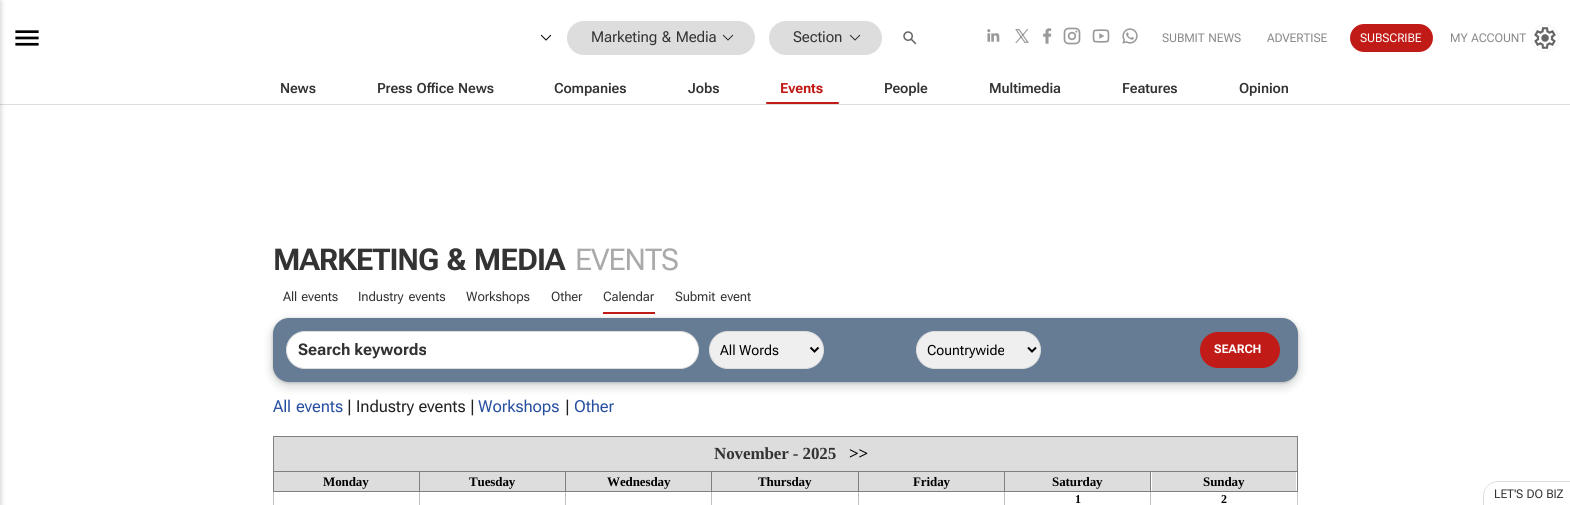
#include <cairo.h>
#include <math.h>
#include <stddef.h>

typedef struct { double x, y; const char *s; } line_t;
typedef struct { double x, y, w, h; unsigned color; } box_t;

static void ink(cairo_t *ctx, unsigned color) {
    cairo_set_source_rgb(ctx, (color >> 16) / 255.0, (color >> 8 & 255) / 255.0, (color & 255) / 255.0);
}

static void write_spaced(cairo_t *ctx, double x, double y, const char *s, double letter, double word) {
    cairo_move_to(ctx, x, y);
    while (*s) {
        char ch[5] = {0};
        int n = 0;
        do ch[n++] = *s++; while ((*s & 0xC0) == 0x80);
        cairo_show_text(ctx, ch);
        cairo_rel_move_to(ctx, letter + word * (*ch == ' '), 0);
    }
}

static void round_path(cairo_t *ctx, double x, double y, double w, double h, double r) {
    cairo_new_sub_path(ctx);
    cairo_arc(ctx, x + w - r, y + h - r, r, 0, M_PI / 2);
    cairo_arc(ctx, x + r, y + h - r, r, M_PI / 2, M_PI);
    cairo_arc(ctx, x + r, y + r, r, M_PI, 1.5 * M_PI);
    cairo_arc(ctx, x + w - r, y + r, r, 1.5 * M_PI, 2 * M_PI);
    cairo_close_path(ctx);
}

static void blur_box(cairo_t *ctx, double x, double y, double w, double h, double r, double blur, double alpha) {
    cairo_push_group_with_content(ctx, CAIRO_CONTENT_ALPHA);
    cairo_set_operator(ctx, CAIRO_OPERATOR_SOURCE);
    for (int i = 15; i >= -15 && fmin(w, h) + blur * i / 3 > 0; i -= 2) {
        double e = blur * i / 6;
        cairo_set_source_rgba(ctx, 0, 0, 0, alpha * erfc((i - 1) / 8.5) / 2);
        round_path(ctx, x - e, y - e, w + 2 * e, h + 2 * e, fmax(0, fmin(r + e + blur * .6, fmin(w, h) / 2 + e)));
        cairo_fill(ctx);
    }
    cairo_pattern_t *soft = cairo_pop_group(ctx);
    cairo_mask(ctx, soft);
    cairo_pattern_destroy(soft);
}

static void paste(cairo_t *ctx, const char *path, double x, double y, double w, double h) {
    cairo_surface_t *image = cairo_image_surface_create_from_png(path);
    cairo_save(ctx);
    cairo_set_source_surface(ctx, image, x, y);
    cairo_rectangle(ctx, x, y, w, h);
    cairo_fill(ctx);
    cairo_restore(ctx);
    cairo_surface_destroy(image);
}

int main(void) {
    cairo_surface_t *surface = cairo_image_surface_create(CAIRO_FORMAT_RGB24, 1570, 505);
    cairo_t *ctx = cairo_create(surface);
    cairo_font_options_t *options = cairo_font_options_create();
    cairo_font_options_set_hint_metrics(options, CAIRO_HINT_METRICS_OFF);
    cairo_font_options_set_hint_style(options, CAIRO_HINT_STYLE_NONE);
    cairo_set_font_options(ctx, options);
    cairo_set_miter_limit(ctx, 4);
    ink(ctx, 0xFFFFFF);
    cairo_paint(ctx);
    ink(ctx, 0xDDDDDD);
    cairo_rectangle(ctx, 0, 104, 1570, 1);
    cairo_fill(ctx);
    ink(ctx, 0x202124);
    blur_box(ctx, -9, 1, 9, 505, 0, 3, 0.28);
    paste(ctx, "media/1.png", 15, 30, 24, 16);
    paste(ctx, "media/2.png", 540, 34, 12, 7);
    ink(ctx, 0xDDDDDD);
    round_path(ctx, 567, 21, 188, 34, 17);
    cairo_fill(ctx);
    cairo_select_font_face(ctx, "Roboto Flex", CAIRO_FONT_SLANT_NORMAL, CAIRO_FONT_WEIGHT_NORMAL);
    cairo_set_font_size(ctx, 15);
    ink(ctx, 0x333333);
    write_spaced(ctx, 591, 42, "Marketing & Media", -0.1, 1);
    paste(ctx, "media/3.png", 722, 34, 12, 7);
    ink(ctx, 0xDDDDDD);
    round_path(ctx, 769, 21, 113, 34, 17);
    cairo_fill(ctx);
    ink(ctx, 0x333333);
    write_spaced(ctx, 793, 42, "Section", -0.1, 0);
    paste(ctx, "media/3.png", 849, 34, 12, 7);
    paste(ctx, "media/4.png", 903, 31, 14, 14);
    paste(ctx, "media/5.png", 987, 29, 13, 13);
    paste(ctx, "media/6.png", 1015, 29, 14, 14);
    paste(ctx, "media/7.png", 1043, 28, 9, 16);
    paste(ctx, "media/8.png", 1063, 27, 18, 18);
    paste(ctx, "media/9.png", 1092, 29, 18, 14);
    paste(ctx, "media/10.png", 1122, 28, 16, 16);
    cairo_set_font_size(ctx, 12);
    ink(ctx, 0x888888);
    write_spaced(ctx, 1162, 42, "SUBMIT NEWS", -0.1, 1);
    write_spaced(ctx, 1267, 42, "ADVERTISE", -0.1, 0);
    ink(ctx, 0xC11B17);
    round_path(ctx, 1350, 24, 83, 28, 14);
    cairo_fill(ctx);
    ink(ctx, 0xFFFFFF);
    write_spaced(ctx, 1360, 42, "SUBSCRIBE", -0.1, 0);
    ink(ctx, 0x888888);
    write_spaced(ctx, 1450, 42, "MY ACCOUNT", -0.1, 1);
    paste(ctx, "media/11.png", 1534, 27, 22, 22);
    cairo_arc(ctx, 1545, 38, 13.5, 0, 2 * M_PI);
    ink(ctx, 0xF5F5F5);
    cairo_set_line_width(ctx, 1);
    cairo_stroke(ctx);
    cairo_select_font_face(ctx, "Roboto Flex SemiBold", CAIRO_FONT_SLANT_NORMAL, CAIRO_FONT_WEIGHT_NORMAL);
    cairo_set_font_size(ctx, 14);
    ink(ctx, 0x333333);
    write_spaced(ctx, 280, 93, "News", -0.1, 0);
    write_spaced(ctx, 377, 93, "Press Office News", -0.1, 1);
    write_spaced(ctx, 554, 93, "Companies", -0.1, 0);
    write_spaced(ctx, 688, 93, "Jobs", -0.1, 0);
    cairo_select_font_face(ctx, "Roboto Flex", CAIRO_FONT_SLANT_NORMAL, CAIRO_FONT_WEIGHT_BOLD);
    ink(ctx, 0xC11B17);
    write_spaced(ctx, 780, 93, "Events", -0.1, 0);
    round_path(ctx, 766, 102, 73, 2, 1);
    cairo_fill(ctx);
    cairo_select_font_face(ctx, "Roboto Flex SemiBold", CAIRO_FONT_SLANT_NORMAL, CAIRO_FONT_WEIGHT_NORMAL);
    ink(ctx, 0x333333);
    {
        static const line_t items[] = {
            {884, 93, "People"},
            {989, 93, "Multimedia"},
            {1122, 93, "Features"},
            {1239, 93, "Opinion"},
        };
        for (size_t i = 0; i < sizeof items / sizeof *items; i++) {
            write_spaced(ctx, items[i].x, items[i].y, items[i].s, -0.1, 0);
        }
    }
    cairo_select_font_face(ctx, "Roboto Flex", CAIRO_FONT_SLANT_NORMAL, CAIRO_FONT_WEIGHT_BOLD);
    cairo_set_font_size(ctx, 30);
    write_spaced(ctx, 273, 270, "MARKETING & MEDIA", -1, 2);
    cairo_select_font_face(ctx, "Roboto Flex", CAIRO_FONT_SLANT_NORMAL, CAIRO_FONT_WEIGHT_NORMAL);
    ink(ctx, 0xAAAAAA);
    write_spaced(ctx, 575, 270, "EVENTS", -1, 0);
    cairo_set_font_size(ctx, 13);
    ink(ctx, 0x333333);
    write_spaced(ctx, 283, 301, "All events", -0.1, 1);
    write_spaced(ctx, 358, 301, "Industry events", -0.1, 2);
    write_spaced(ctx, 466, 301, "Workshops", -0.1, 0);
    write_spaced(ctx, 551, 301, "Other", -0.1, 0);
    ink(ctx, 0x3C4043);
    blur_box(ctx, 270, 319, 1031, 70, 19, 4, 0.15);
    blur_box(ctx, 273, 319, 1025, 64, 16, 1.5, 0.3);
    ink(ctx, 0xC11B17);
    cairo_rectangle(ctx, 603, 312, 52, 2);
    cairo_fill(ctx);
    ink(ctx, 0x333333);
    write_spaced(ctx, 603, 301, "Calendar", -0.1, 0);
    write_spaced(ctx, 675, 301, "Submit event", -0.1, 2);
    ink(ctx, 0x667C94);
    round_path(ctx, 273, 318, 1025, 64, 16);
    cairo_fill(ctx);
    ink(ctx, 0xFFFFFF);
    round_path(ctx, 286.5, 331.5, 412, 37, 18.5);
    cairo_fill_preserve(ctx);
    ink(ctx, 0xDDDDDD);
    cairo_stroke(ctx);
    cairo_select_font_face(ctx, "Roboto Flex", CAIRO_FONT_SLANT_NORMAL, CAIRO_FONT_WEIGHT_BOLD);
    cairo_set_font_size(ctx, 16);
    ink(ctx, 0x333333);
    cairo_move_to(ctx, 298, 355);
    cairo_show_text(ctx, "Search keywords");
    ink(ctx, 0xEFEFEF);
    round_path(ctx, 709.5, 331.5, 114, 37, 18.5);
    cairo_fill_preserve(ctx);
    ink(ctx, 0xDDDDDD);
    cairo_stroke(ctx);
    cairo_new_path(ctx);
    cairo_move_to(ctx, 810.5, 347.5);
    cairo_line_to(ctx, 814.5, 351.5);
    cairo_line_to(ctx, 818.5, 347.5);
    ink(ctx, 0x000000);
    cairo_set_line_width(ctx, 2);
    cairo_stroke(ctx);
    cairo_select_font_face(ctx, "Roboto Flex", CAIRO_FONT_SLANT_NORMAL, CAIRO_FONT_WEIGHT_NORMAL);
    cairo_set_font_size(ctx, 14);
    cairo_move_to(ctx, 720, 355);
    cairo_show_text(ctx, "All Words");
    ink(ctx, 0xEFEFEF);
    round_path(ctx, 916.5, 331.5, 124, 37, 18.5);
    cairo_fill_preserve(ctx);
    ink(ctx, 0xDDDDDD);
    cairo_set_line_width(ctx, 1);
    cairo_stroke(ctx);
    cairo_new_path(ctx);
    cairo_move_to(ctx, 1028, 347.5);
    cairo_line_to(ctx, 1032, 351.5);
    cairo_line_to(ctx, 1036, 347.5);
    ink(ctx, 0x000000);
    cairo_set_line_width(ctx, 2);
    cairo_stroke(ctx);
    cairo_move_to(ctx, 927, 355);
    cairo_show_text(ctx, "Countrywide");
    ink(ctx, 0xC11B17);
    round_path(ctx, 1200, 332, 80, 36, 18);
    cairo_fill(ctx);
    cairo_select_font_face(ctx, "Roboto Flex", CAIRO_FONT_SLANT_NORMAL, CAIRO_FONT_WEIGHT_BOLD);
    cairo_set_font_size(ctx, 12);
    ink(ctx, 0xFFFFFF);
    cairo_move_to(ctx, 1214, 353);
    cairo_show_text(ctx, "SEARCH");
    cairo_select_font_face(ctx, "Roboto Flex", CAIRO_FONT_SLANT_NORMAL, CAIRO_FONT_WEIGHT_NORMAL);
    cairo_set_font_size(ctx, 16.5);
    ink(ctx, 0x264EA0);
    write_spaced(ctx, 273, 412, "All events", -0.1, 1);
    ink(ctx, 0x202122);
    write_spaced(ctx, 347, 412, "| Industry events |", -0.1, 0.5);
    ink(ctx, 0x264EA0);
    write_spaced(ctx, 478, 412, "Workshops", -0.1, 0);
    ink(ctx, 0x202122);
    write_spaced(ctx, 565, 412, "|", -0.1, 0);
    ink(ctx, 0x264EA0);
    write_spaced(ctx, 574, 412, "Other", -0.1, 0);
    {
        static const box_t items[] = {
            {1297, 492, 1, 13, 0xCCCCCC},
            {274, 437, 1023, 34, 0xDDDDDD},
            {273, 436, 1025, 1, 0x808080},
            {1297, 471, 1, 21, 0x808080},
            {1297, 436, 1, 36, 0x808080},
            {1150, 491, 1, 14, 0xC0C0C0},
            {1150, 491, 148, 1, 0x808080},
            {1150, 471, 1, 21, 0x808080},
            {1004, 491, 1, 14, 0xC0C0C0},
            {1004, 491, 147, 1, 0x808080},
            {1004, 471, 1, 21, 0x808080},
            {858, 491, 1, 14, 0xC0C0C0},
            {858, 491, 147, 1, 0x808080},
            {858, 471, 1, 21, 0x808080},
            {711, 491, 1, 14, 0xC0C0C0},
            {711, 491, 148, 1, 0x808080},
            {711, 471, 1, 21, 0x808080},
            {565, 491, 1, 14, 0xC0C0C0},
            {565, 491, 147, 1, 0x808080},
            {565, 471, 1, 21, 0x808080},
            {419, 491, 1, 14, 0xC0C0C0},
            {419, 491, 147, 1, 0x808080},
            {419, 471, 1, 21, 0x808080},
            {273, 491, 1, 14, 0xC0C0C0},
            {273, 491, 147, 1, 0x808080},
            {273, 471, 1, 21, 0x808080},
            {273, 471, 1025, 1, 0x808080},
            {273, 436, 1, 36, 0x808080},
        };
        for (size_t i = 0; i < sizeof items / sizeof *items; i++) {
            ink(ctx, items[i].color);
            cairo_rectangle(ctx, items[i].x, items[i].y, items[i].w, items[i].h);
            cairo_fill(ctx);
        }
    }
    cairo_select_font_face(ctx, "Liberation Serif", CAIRO_FONT_SLANT_NORMAL, CAIRO_FONT_WEIGHT_BOLD);
    cairo_set_font_size(ctx, 17);
    ink(ctx, 0x333333);
    write_spaced(ctx, 714, 459, "November - 2025", -0.1, 0);
    ink(ctx, 0x000000);
    write_spaced(ctx, 849, 459, ">>", -0.1, 0);
    ink(ctx, 0xDDDDDD);
    cairo_rectangle(ctx, 274, 472, 145, 19);
    cairo_fill(ctx);
    cairo_set_font_size(ctx, 13);
    ink(ctx, 0x000000);
    write_spaced(ctx, 323, 486, "Monday", -0.1, 0);
    ink(ctx, 0xDDDDDD);
    cairo_rectangle(ctx, 420, 472, 145, 19);
    cairo_fill(ctx);
    ink(ctx, 0x000000);
    write_spaced(ctx, 469, 486, "Tuesday", -0.1, 0);
    ink(ctx, 0xDDDDDD);
    cairo_rectangle(ctx, 566, 472, 145, 19);
    cairo_fill(ctx);
    ink(ctx, 0x000000);
    write_spaced(ctx, 607, 486, "Wednesday", -0.1, 0);
    ink(ctx, 0xDDDDDD);
    cairo_rectangle(ctx, 712, 472, 146, 19);
    cairo_fill(ctx);
    ink(ctx, 0x000000);
    write_spaced(ctx, 758, 486, "Thursday", -0.1, 0);
    ink(ctx, 0xDDDDDD);
    cairo_rectangle(ctx, 859, 472, 145, 19);
    cairo_fill(ctx);
    ink(ctx, 0x000000);
    write_spaced(ctx, 913, 486, "Friday", -0.1, 0);
    ink(ctx, 0xDDDDDD);
    cairo_rectangle(ctx, 1005, 472, 145, 19);
    cairo_fill(ctx);
    ink(ctx, 0x000000);
    write_spaced(ctx, 1052, 486, "Saturday", -0.1, 0);
    ink(ctx, 0xDDDDDD);
    cairo_rectangle(ctx, 1152, 472, 144, 19);
    cairo_fill(ctx);
    ink(ctx, 0x000000);
    write_spaced(ctx, 1203, 486, "Sunday", -0.1, 0);
    cairo_set_font_size(ctx, 12);
    write_spaced(ctx, 1075, 503, "1", -0.1, 0);
    write_spaced(ctx, 1221, 503, "2", -0.1, 0);
    ink(ctx, 0xDDDDDD);
    cairo_set_fill_rule(ctx, CAIRO_FILL_RULE_EVEN_ODD);
    cairo_new_path(ctx);
    cairo_move_to(ctx, 1498, 481);
    cairo_line_to(ctx, 1570, 481);
    cairo_line_to(ctx, 1570, 505);
    cairo_line_to(ctx, 1483, 505);
    cairo_line_to(ctx, 1483, 496);
    cairo_curve_to(ctx, 1483, 488, 1490, 481, 1498, 481);
    cairo_close_path(ctx);
    cairo_move_to(ctx, 1498, 482);
    cairo_line_to(ctx, 1570, 482);
    cairo_line_to(ctx, 1570, 505);
    cairo_line_to(ctx, 1484, 505);
    cairo_line_to(ctx, 1484, 496);
    cairo_curve_to(ctx, 1484, 488, 1490, 482, 1498, 482);
    cairo_close_path(ctx);
    cairo_fill(ctx);
    cairo_select_font_face(ctx, "Roboto Flex", CAIRO_FONT_SLANT_NORMAL, CAIRO_FONT_WEIGHT_NORMAL);
    ink(ctx, 0x333333);
    write_spaced(ctx, 1494, 498, "LET'S DO BIZ", -0.1, 0.5);
    cairo_surface_write_to_png(surface, "image.png");
    cairo_font_options_destroy(options);
    cairo_destroy(ctx);
    cairo_surface_destroy(surface);
    return 0;
}
